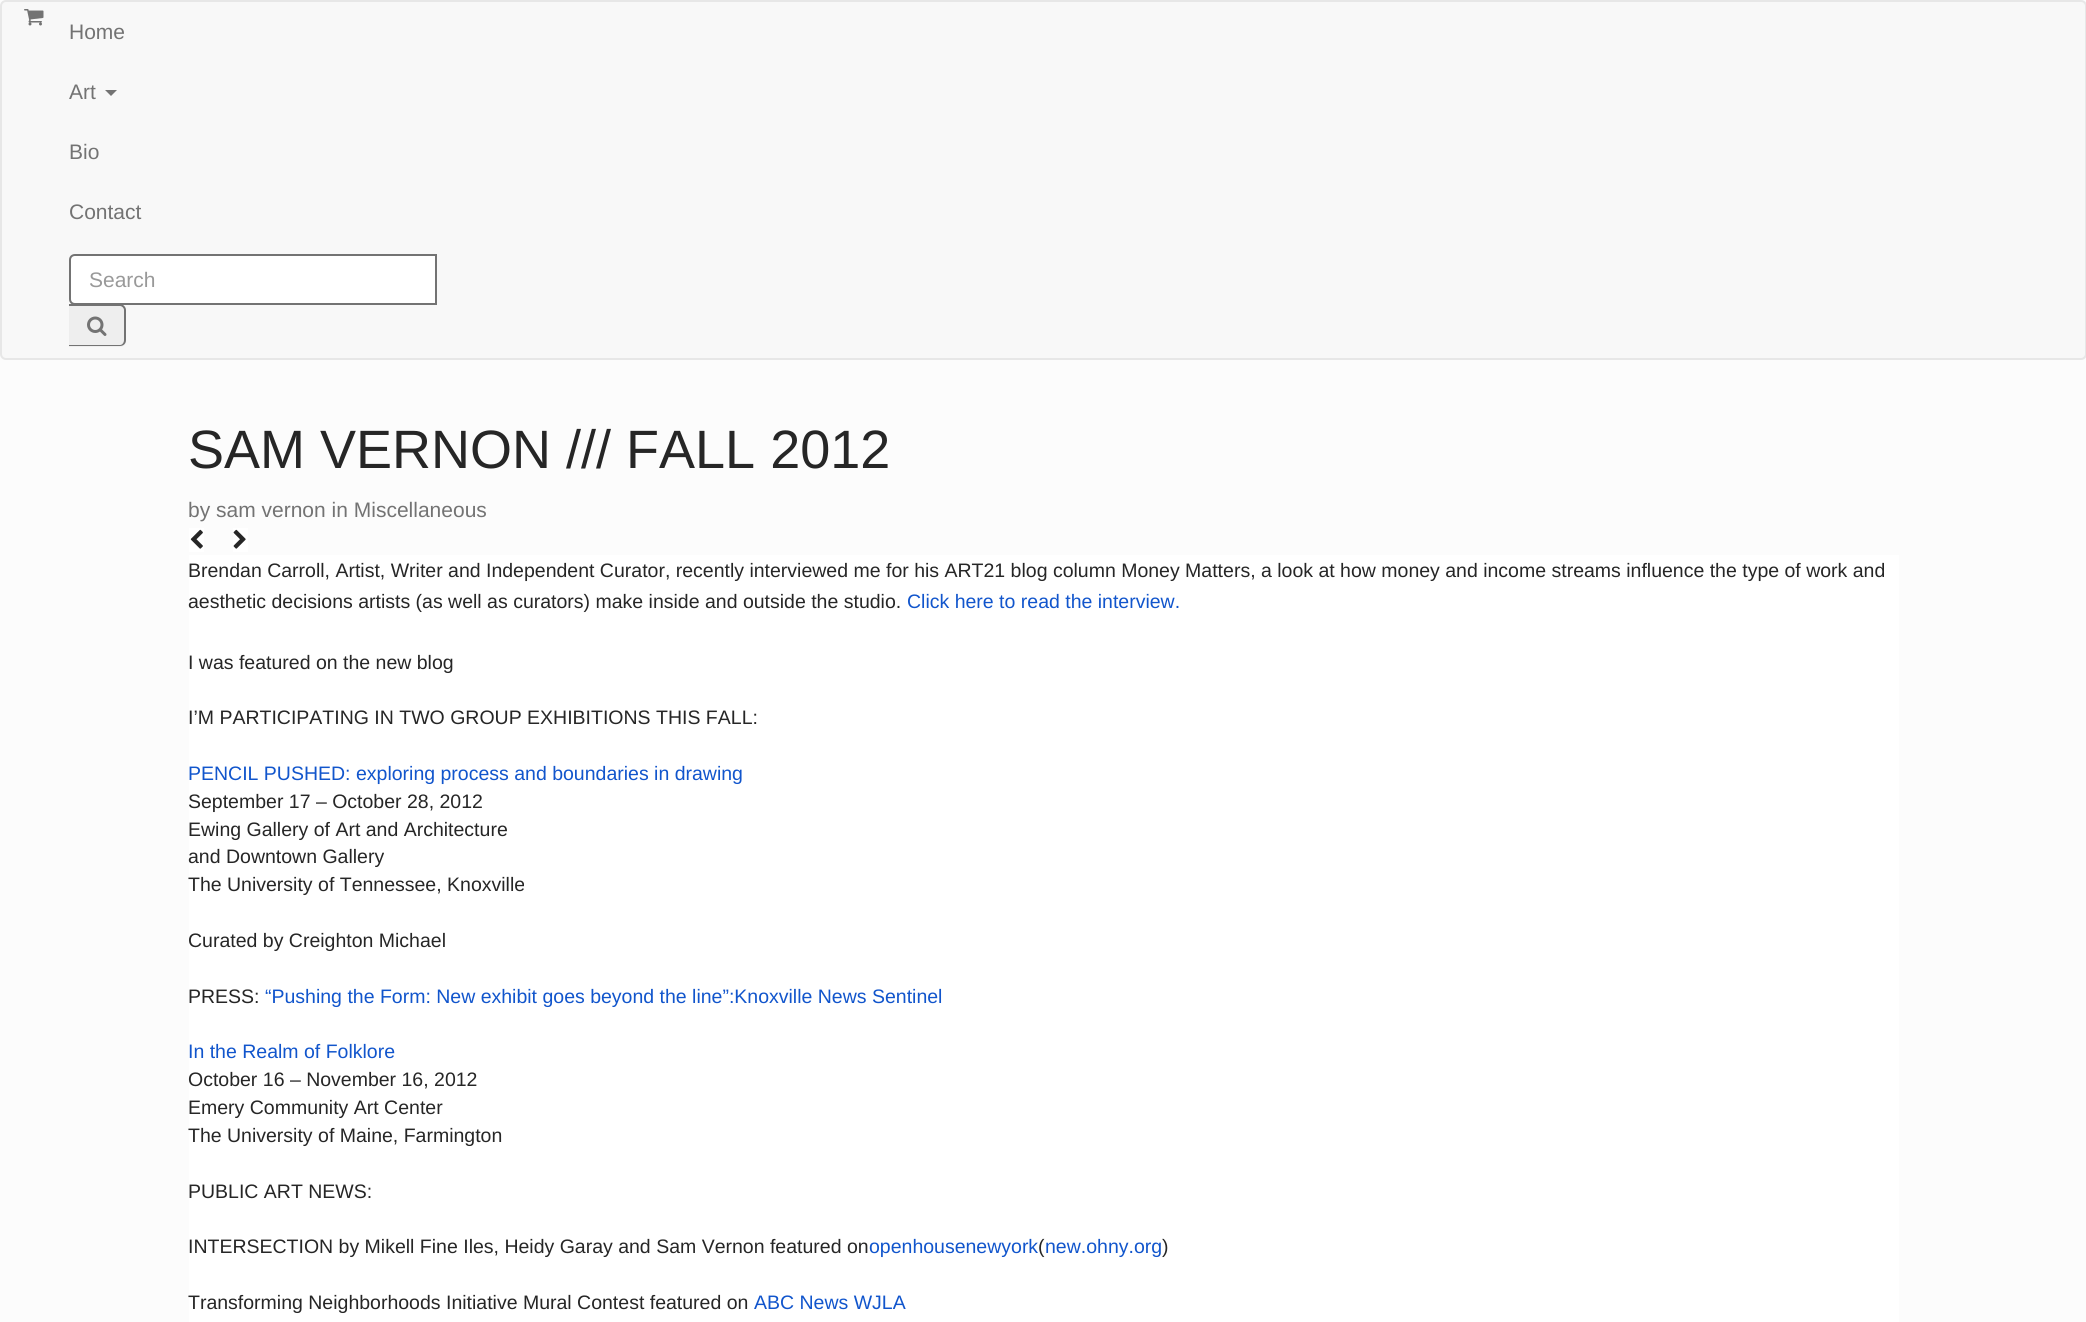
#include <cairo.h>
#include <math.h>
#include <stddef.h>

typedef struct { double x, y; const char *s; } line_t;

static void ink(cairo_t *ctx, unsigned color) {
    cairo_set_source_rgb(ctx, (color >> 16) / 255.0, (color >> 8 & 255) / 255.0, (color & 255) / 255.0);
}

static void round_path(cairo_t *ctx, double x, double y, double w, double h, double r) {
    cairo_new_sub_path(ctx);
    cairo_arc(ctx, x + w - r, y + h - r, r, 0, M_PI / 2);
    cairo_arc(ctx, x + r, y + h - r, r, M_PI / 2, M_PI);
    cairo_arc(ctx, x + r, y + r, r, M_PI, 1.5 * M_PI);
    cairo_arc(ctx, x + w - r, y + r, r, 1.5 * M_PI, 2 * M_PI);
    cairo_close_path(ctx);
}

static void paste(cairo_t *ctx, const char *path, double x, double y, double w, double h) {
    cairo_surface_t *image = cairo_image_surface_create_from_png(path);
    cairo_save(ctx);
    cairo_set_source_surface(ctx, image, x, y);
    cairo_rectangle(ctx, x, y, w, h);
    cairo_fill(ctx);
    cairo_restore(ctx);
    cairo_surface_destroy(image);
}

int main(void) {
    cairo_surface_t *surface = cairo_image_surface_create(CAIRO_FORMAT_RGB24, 2086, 1322);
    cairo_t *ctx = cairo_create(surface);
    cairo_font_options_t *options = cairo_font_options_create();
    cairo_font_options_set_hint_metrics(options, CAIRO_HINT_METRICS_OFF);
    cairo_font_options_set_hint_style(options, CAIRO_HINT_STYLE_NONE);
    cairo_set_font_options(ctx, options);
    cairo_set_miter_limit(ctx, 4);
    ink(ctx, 0xFCFCFC);
    cairo_paint(ctx);
    ink(ctx, 0xF8F8F8);
    round_path(ctx, 1, 1, 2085, 358, 5);
    cairo_fill_preserve(ctx);
    ink(ctx, 0xE7E7E7);
    cairo_stroke(ctx);
    paste(ctx, "media/1.png", 24, 9, 20, 17);
    cairo_select_font_face(ctx, "Liberation Sans", CAIRO_FONT_SLANT_NORMAL, CAIRO_FONT_WEIGHT_NORMAL);
    cairo_set_font_size(ctx, 21);
    ink(ctx, 0x737373);
    cairo_move_to(ctx, 69, 39);
    cairo_show_text(ctx, "Home");
    cairo_move_to(ctx, 69, 99);
    cairo_show_text(ctx, "Art");
    cairo_new_path(ctx);
    cairo_move_to(ctx, 105, 90);
    cairo_line_to(ctx, 117, 90);
    cairo_line_to(ctx, 111, 96);
    cairo_close_path(ctx);
    cairo_fill(ctx);
    cairo_move_to(ctx, 69, 159);
    cairo_show_text(ctx, "Bio");
    cairo_move_to(ctx, 69, 219);
    cairo_show_text(ctx, "Contact");
    ink(ctx, 0xEEEEEE);
    cairo_new_path(ctx);
    cairo_move_to(ctx, 69, 305);
    cairo_line_to(ctx, 120, 305);
    cairo_curve_to(ctx, 123.5, 305, 126, 307.5, 126, 311);
    cairo_line_to(ctx, 126, 341);
    cairo_curve_to(ctx, 126, 344.5, 123.5, 347, 120, 347);
    cairo_line_to(ctx, 69, 347);
    cairo_close_path(ctx);
    cairo_fill(ctx);
    ink(ctx, 0x737373);
    cairo_set_fill_rule(ctx, CAIRO_FILL_RULE_EVEN_ODD);
    cairo_new_path(ctx);
    cairo_move_to(ctx, 69, 304);
    cairo_line_to(ctx, 120, 304);
    cairo_curve_to(ctx, 123, 304, 126, 307, 126, 310);
    cairo_line_to(ctx, 126, 340);
    cairo_curve_to(ctx, 126, 344, 123, 346, 120, 346);
    cairo_line_to(ctx, 69, 346);
    cairo_close_path(ctx);
    cairo_move_to(ctx, 69, 306);
    cairo_line_to(ctx, 120, 306);
    cairo_curve_to(ctx, 122, 306, 124, 308, 124, 310);
    cairo_line_to(ctx, 124, 340);
    cairo_curve_to(ctx, 124, 343, 122, 345, 120, 345);
    cairo_line_to(ctx, 69, 345);
    cairo_close_path(ctx);
    cairo_fill(ctx);
    ink(ctx, 0xFFFFFF);
    cairo_new_path(ctx);
    cairo_move_to(ctx, 75, 255);
    cairo_line_to(ctx, 436, 255);
    cairo_line_to(ctx, 436, 304);
    cairo_line_to(ctx, 75, 304);
    cairo_curve_to(ctx, 72, 304, 70, 302, 70, 299);
    cairo_line_to(ctx, 70, 260);
    cairo_curve_to(ctx, 70, 257, 72, 255, 75, 255);
    cairo_close_path(ctx);
    cairo_fill_preserve(ctx);
    ink(ctx, 0x737373);
    cairo_stroke(ctx);
    ink(ctx, 0x999999);
    cairo_move_to(ctx, 89, 287);
    cairo_show_text(ctx, "Search");
    paste(ctx, "media/2.png", 87, 316, 20, 20);
    cairo_set_font_size(ctx, 54);
    ink(ctx, 0x262626);
    cairo_move_to(ctx, 188, 468);
    cairo_show_text(ctx, "SAM VERNON /// FALL 2012");
    cairo_set_font_size(ctx, 21);
    ink(ctx, 0x737373);
    cairo_move_to(ctx, 188, 517);
    cairo_show_text(ctx, "by sam vernon in Miscellaneous");
    ink(ctx, 0xFFFFFF);
    cairo_rectangle(ctx, 189, 528, 15, 24);
    cairo_fill(ctx);
    paste(ctx, "media/3.png", 190, 529, 13, 20);
    cairo_rectangle(ctx, 233, 528, 15, 24);
    cairo_fill(ctx);
    paste(ctx, "media/4.png", 233, 529, 13, 20);
    cairo_rectangle(ctx, 189, 555, 1710, 767);
    cairo_fill(ctx);
    cairo_set_font_size(ctx, 19.5);
    ink(ctx, 0x262626);
    cairo_move_to(ctx, 188, 577);
    cairo_show_text(ctx, "Brendan Carroll, Artist, Writer and Independent Curator, recently interviewed me for his ART21 blog column Money Matters, a look at how money and income streams influence the type of work and");
    cairo_move_to(ctx, 188, 608);
    cairo_show_text(ctx, "aesthetic decisions artists (as well as curators) make inside and outside the studio.");
    ink(ctx, 0x1155CC);
    cairo_move_to(ctx, 907, 608);
    cairo_show_text(ctx, "Click here to read the interview.");
    ink(ctx, 0x262626);
    cairo_move_to(ctx, 188, 669);
    cairo_show_text(ctx, "I was featured on the new blog");
    cairo_move_to(ctx, 188, 724);
    cairo_show_text(ctx, "I’M PARTICIPATING IN TWO GROUP EXHIBITIONS THIS FALL:");
    ink(ctx, 0x1155CC);
    cairo_move_to(ctx, 188, 780);
    cairo_show_text(ctx, "PENCIL PUSHED: exploring process and boundaries in drawing");
    ink(ctx, 0x262626);
    {
        static const line_t items[] = {
            {188, 808, "September 17 – October 28, 2012"},
            {188, 836, "Ewing Gallery of Art and Architecture"},
            {188, 863, "and Downtown Gallery"},
            {188, 891, "The University of Tennessee, Knoxville"},
            {188, 947, "Curated by Creighton Michael"},
            {188, 1003, "PRESS:"},
        };
        for (size_t i = 0; i < sizeof items / sizeof *items; i++) {
            cairo_move_to(ctx, items[i].x, items[i].y);
            cairo_show_text(ctx, items[i].s);
        }
    }
    ink(ctx, 0x1155CC);
    cairo_move_to(ctx, 265, 1003);
    cairo_show_text(ctx, "“Pushing the Form: New exhibit goes beyond the line”:Knoxville News Sentinel");
    cairo_move_to(ctx, 188, 1058);
    cairo_show_text(ctx, "In the Realm of Folklore");
    ink(ctx, 0x262626);
    {
        static const line_t items[] = {
            {188, 1086, "October 16 – November 16, 2012"},
            {188, 1114, "Emery Community Art Center"},
            {188, 1142, "The University of Maine, Farmington"},
            {188, 1198, "PUBLIC ART NEWS:"},
            {188, 1253, "INTERSECTION by Mikell Fine Iles, Heidy Garay and Sam Vernon featured on"},
        };
        for (size_t i = 0; i < sizeof items / sizeof *items; i++) {
            cairo_move_to(ctx, items[i].x, items[i].y);
            cairo_show_text(ctx, items[i].s);
        }
    }
    ink(ctx, 0x1155CC);
    cairo_move_to(ctx, 869, 1253);
    cairo_show_text(ctx, "openhousenewyork");
    ink(ctx, 0x262626);
    cairo_move_to(ctx, 1038, 1253);
    cairo_show_text(ctx, "(");
    ink(ctx, 0x1155CC);
    cairo_move_to(ctx, 1045, 1253);
    cairo_show_text(ctx, "new.ohny.org");
    ink(ctx, 0x262626);
    cairo_move_to(ctx, 1162, 1253);
    cairo_show_text(ctx, ")");
    cairo_move_to(ctx, 188, 1309);
    cairo_show_text(ctx, "Transforming Neighborhoods Initiative Mural Contest featured on");
    ink(ctx, 0x1155CC);
    cairo_move_to(ctx, 754, 1309);
    cairo_show_text(ctx, "ABC News WJLA");
    cairo_surface_write_to_png(surface, "image.png");
    cairo_font_options_destroy(options);
    cairo_destroy(ctx);
    cairo_surface_destroy(surface);
    return 0;
}
